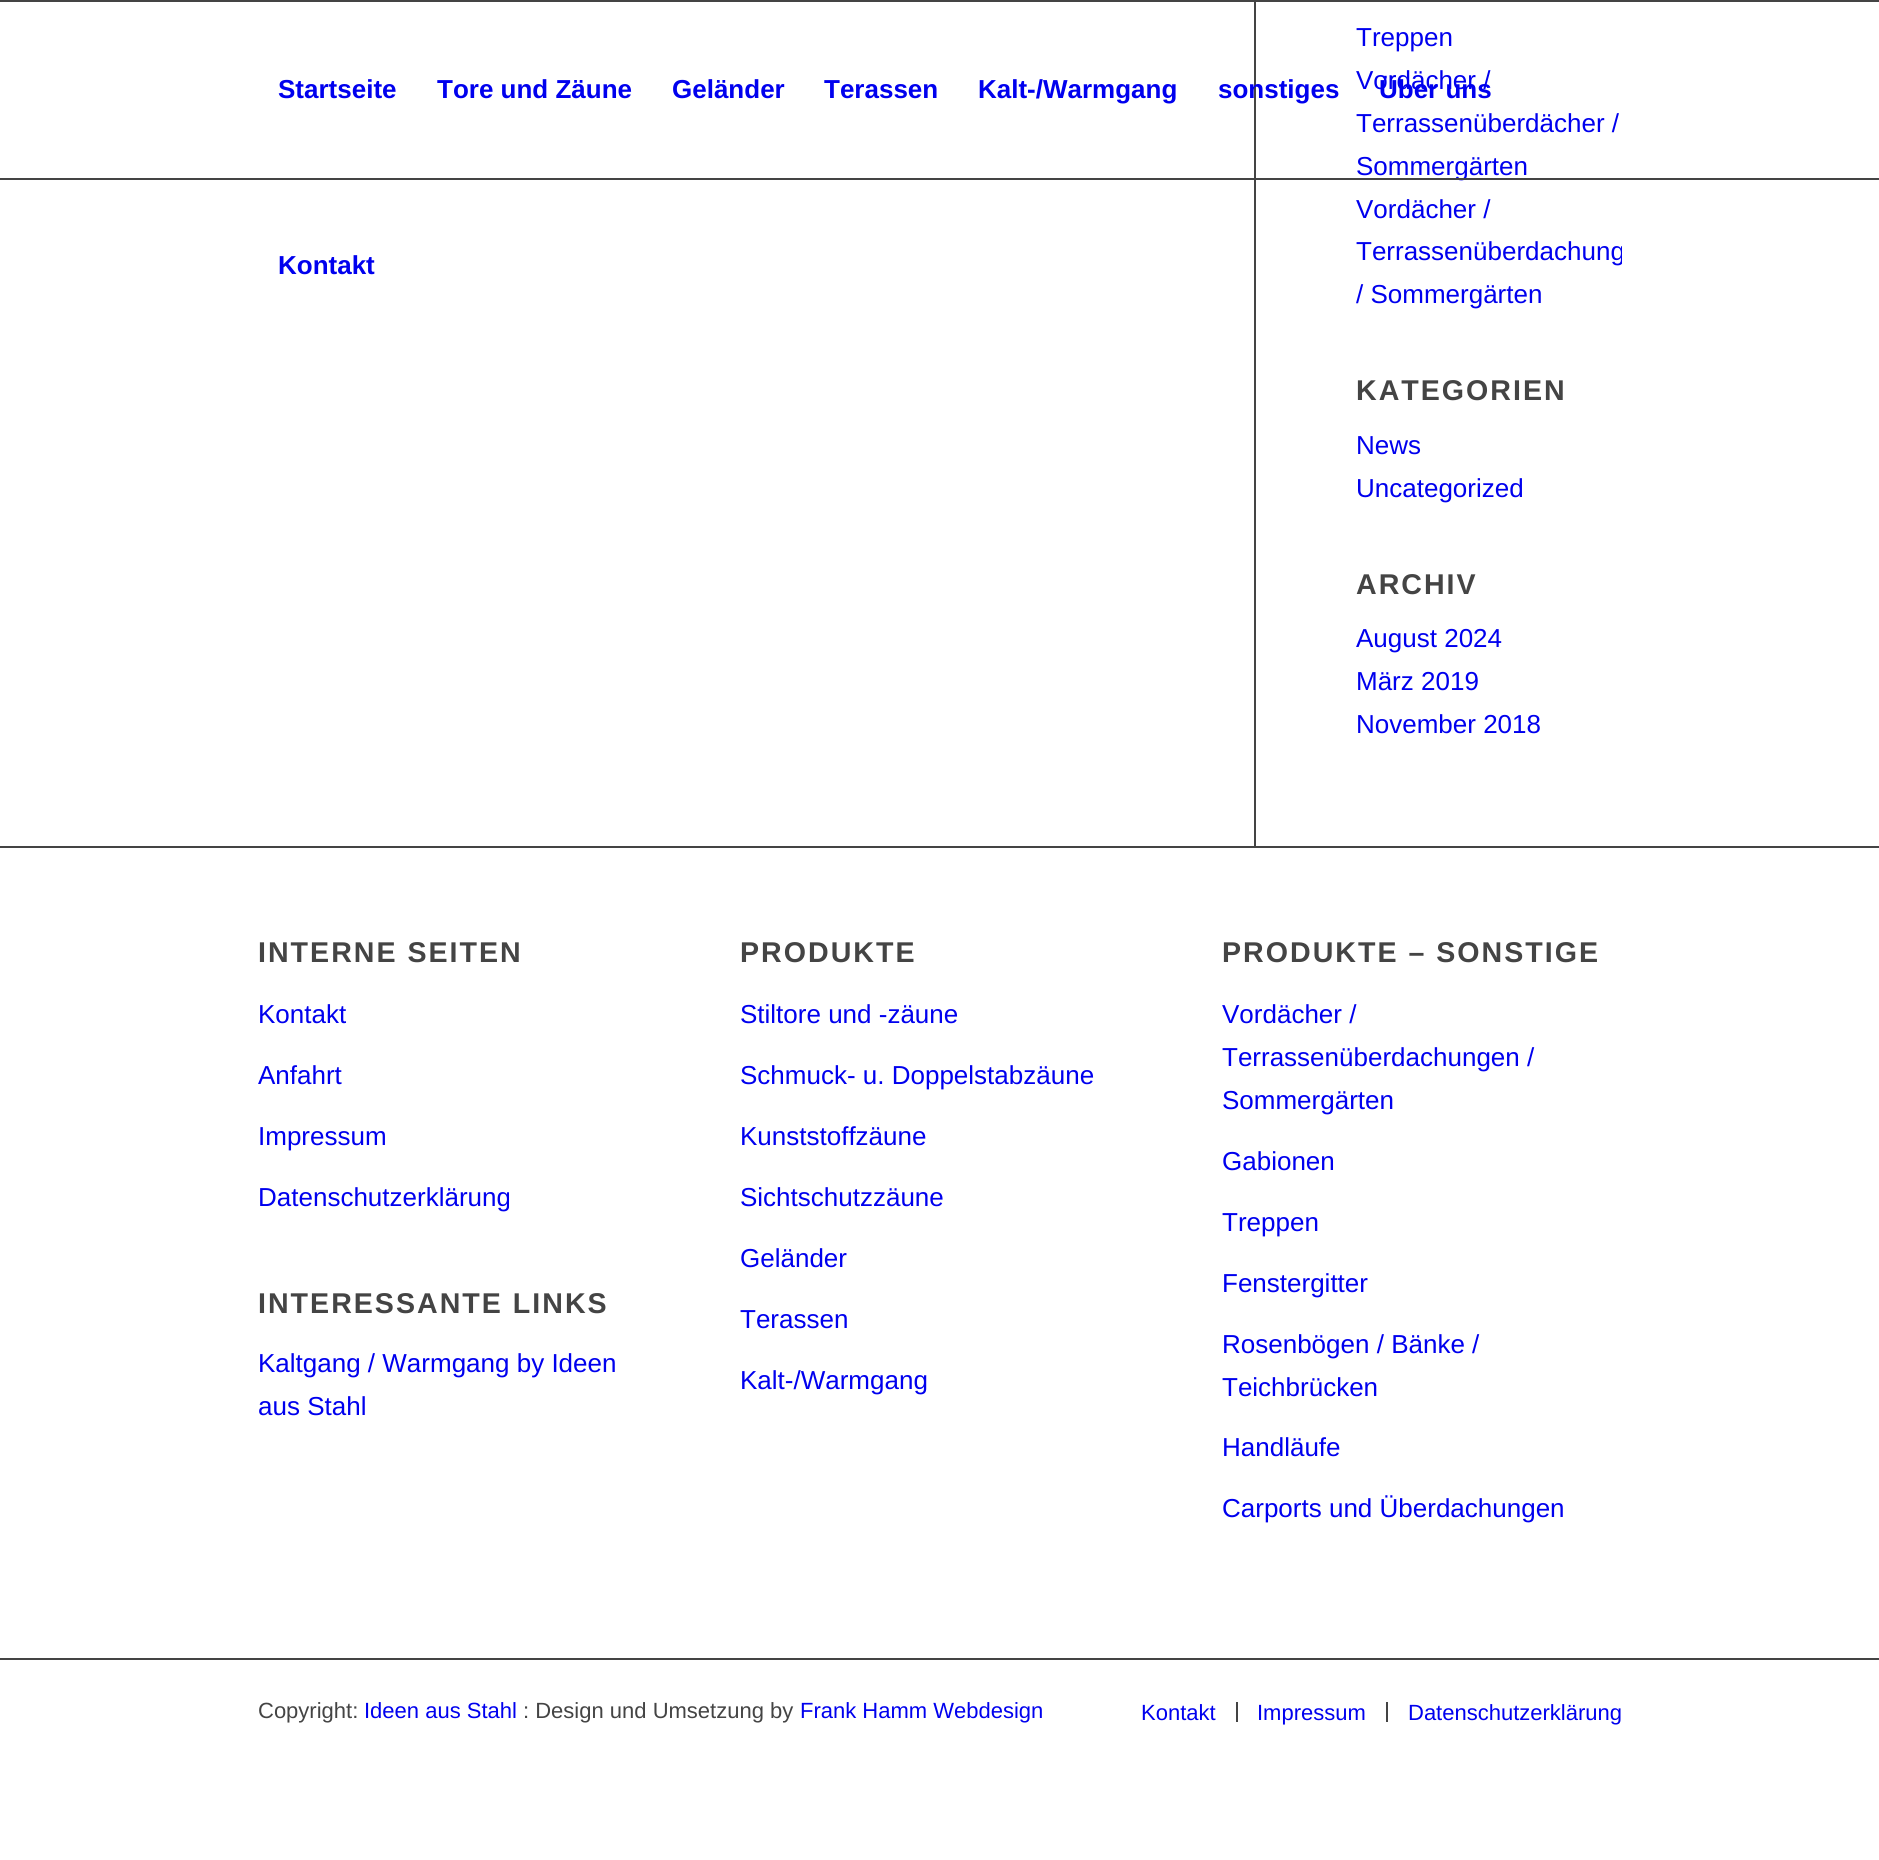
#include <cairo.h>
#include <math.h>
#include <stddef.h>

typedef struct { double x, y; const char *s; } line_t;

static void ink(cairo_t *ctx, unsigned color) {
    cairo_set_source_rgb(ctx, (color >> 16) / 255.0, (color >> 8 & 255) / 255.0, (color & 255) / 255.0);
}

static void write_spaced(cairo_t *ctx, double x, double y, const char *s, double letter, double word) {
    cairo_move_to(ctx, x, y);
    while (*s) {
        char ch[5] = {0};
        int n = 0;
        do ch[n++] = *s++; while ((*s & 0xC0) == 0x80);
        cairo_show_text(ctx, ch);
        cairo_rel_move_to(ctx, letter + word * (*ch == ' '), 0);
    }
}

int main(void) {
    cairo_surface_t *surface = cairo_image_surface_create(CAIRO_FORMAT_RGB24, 1879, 1860);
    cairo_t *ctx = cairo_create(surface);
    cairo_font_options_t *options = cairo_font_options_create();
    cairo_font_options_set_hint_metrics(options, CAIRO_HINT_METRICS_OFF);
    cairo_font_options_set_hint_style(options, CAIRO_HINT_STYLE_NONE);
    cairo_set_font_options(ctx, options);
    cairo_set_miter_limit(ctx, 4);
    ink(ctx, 0xFFFFFF);
    cairo_paint(ctx);
    ink(ctx, 0x444444);
    cairo_rectangle(ctx, 1254, 0, 2, 846);
    cairo_fill(ctx);
    cairo_select_font_face(ctx, "Liberation Sans", CAIRO_FONT_SLANT_NORMAL, CAIRO_FONT_WEIGHT_NORMAL);
    cairo_set_font_size(ctx, 26);
    ink(ctx, 0x0000EE);
    {
        static const line_t items[] = {
            {1356, 46, "Treppen"},
            {1356, 89, "Vordächer /"},
            {1356, 132, "Terrassenüberdächer /"},
            {1356, 175, "Sommergärten"},
            {1356, 218, "Vordächer /"},
        };
        for (size_t i = 0; i < sizeof items / sizeof *items; i++) {
            cairo_move_to(ctx, items[i].x, items[i].y);
            cairo_show_text(ctx, items[i].s);
        }
    }
    cairo_save(ctx);
    cairo_rectangle(ctx, 1256, 0, 366, 846);
    cairo_clip(ctx);
    cairo_move_to(ctx, 1356, 260);
    cairo_show_text(ctx, "Terrassenüberdachung");
    cairo_restore(ctx);
    cairo_move_to(ctx, 1356, 303);
    cairo_show_text(ctx, "/ Sommergärten");
    cairo_select_font_face(ctx, "Liberation Sans", CAIRO_FONT_SLANT_NORMAL, CAIRO_FONT_WEIGHT_BOLD);
    cairo_set_font_size(ctx, 28.6);
    ink(ctx, 0x444444);
    write_spaced(ctx, 1356, 400, "KATEGORIEN", 2, 0);
    cairo_select_font_face(ctx, "Liberation Sans", CAIRO_FONT_SLANT_NORMAL, CAIRO_FONT_WEIGHT_NORMAL);
    cairo_set_font_size(ctx, 26);
    ink(ctx, 0x0000EE);
    cairo_move_to(ctx, 1356, 454);
    cairo_show_text(ctx, "News");
    cairo_move_to(ctx, 1356, 497);
    cairo_show_text(ctx, "Uncategorized");
    cairo_select_font_face(ctx, "Liberation Sans", CAIRO_FONT_SLANT_NORMAL, CAIRO_FONT_WEIGHT_BOLD);
    cairo_set_font_size(ctx, 28.6);
    ink(ctx, 0x444444);
    write_spaced(ctx, 1356, 594, "ARCHIV", 2, 0);
    cairo_select_font_face(ctx, "Liberation Sans", CAIRO_FONT_SLANT_NORMAL, CAIRO_FONT_WEIGHT_NORMAL);
    cairo_set_font_size(ctx, 26);
    ink(ctx, 0x0000EE);
    {
        static const line_t items[] = {
            {1356, 647, "August 2024"},
            {1356, 690, "März 2019"},
            {1356, 733, "November 2018"},
        };
        for (size_t i = 0; i < sizeof items / sizeof *items; i++) {
            cairo_move_to(ctx, items[i].x, items[i].y);
            cairo_show_text(ctx, items[i].s);
        }
    }
    ink(ctx, 0x444444);
    cairo_rectangle(ctx, 0, 846, 1879, 2);
    cairo_fill(ctx);
    cairo_select_font_face(ctx, "Liberation Sans", CAIRO_FONT_SLANT_NORMAL, CAIRO_FONT_WEIGHT_BOLD);
    cairo_set_font_size(ctx, 28.6);
    write_spaced(ctx, 258, 962, "INTERNE SEITEN", 2, 0);
    cairo_select_font_face(ctx, "Liberation Sans", CAIRO_FONT_SLANT_NORMAL, CAIRO_FONT_WEIGHT_NORMAL);
    cairo_set_font_size(ctx, 26);
    ink(ctx, 0x0000EE);
    {
        static const line_t items[] = {
            {258, 1023, "Kontakt"},
            {258, 1084, "Anfahrt"},
            {258, 1145, "Impressum"},
            {258, 1206, "Datenschutzerklärung"},
        };
        for (size_t i = 0; i < sizeof items / sizeof *items; i++) {
            cairo_move_to(ctx, items[i].x, items[i].y);
            cairo_show_text(ctx, items[i].s);
        }
    }
    cairo_select_font_face(ctx, "Liberation Sans", CAIRO_FONT_SLANT_NORMAL, CAIRO_FONT_WEIGHT_BOLD);
    cairo_set_font_size(ctx, 28.6);
    ink(ctx, 0x444444);
    write_spaced(ctx, 258, 1313, "INTERESSANTE LINKS", 2, 0);
    cairo_select_font_face(ctx, "Liberation Sans", CAIRO_FONT_SLANT_NORMAL, CAIRO_FONT_WEIGHT_NORMAL);
    cairo_set_font_size(ctx, 26);
    ink(ctx, 0x0000EE);
    cairo_move_to(ctx, 258, 1372);
    cairo_show_text(ctx, "Kaltgang / Warmgang by Ideen");
    cairo_move_to(ctx, 258, 1415);
    cairo_show_text(ctx, "aus Stahl");
    cairo_select_font_face(ctx, "Liberation Sans", CAIRO_FONT_SLANT_NORMAL, CAIRO_FONT_WEIGHT_BOLD);
    cairo_set_font_size(ctx, 28.6);
    ink(ctx, 0x444444);
    write_spaced(ctx, 740, 962, "PRODUKTE", 2, 0);
    cairo_select_font_face(ctx, "Liberation Sans", CAIRO_FONT_SLANT_NORMAL, CAIRO_FONT_WEIGHT_NORMAL);
    cairo_set_font_size(ctx, 26);
    ink(ctx, 0x0000EE);
    {
        static const line_t items[] = {
            {740, 1023, "Stiltore und -zäune"},
            {740, 1084, "Schmuck- u. Doppelstabzäune"},
            {740, 1145, "Kunststoffzäune"},
            {740, 1206, "Sichtschutzzäune"},
            {740, 1267, "Geländer"},
            {740, 1328, "Terassen"},
            {740, 1389, "Kalt-/Warmgang"},
        };
        for (size_t i = 0; i < sizeof items / sizeof *items; i++) {
            cairo_move_to(ctx, items[i].x, items[i].y);
            cairo_show_text(ctx, items[i].s);
        }
    }
    cairo_select_font_face(ctx, "Liberation Sans", CAIRO_FONT_SLANT_NORMAL, CAIRO_FONT_WEIGHT_BOLD);
    cairo_set_font_size(ctx, 28.6);
    ink(ctx, 0x444444);
    write_spaced(ctx, 1222, 962, "PRODUKTE – SONSTIGE", 2, 0);
    cairo_select_font_face(ctx, "Liberation Sans", CAIRO_FONT_SLANT_NORMAL, CAIRO_FONT_WEIGHT_NORMAL);
    cairo_set_font_size(ctx, 26);
    ink(ctx, 0x0000EE);
    {
        static const line_t items[] = {
            {1222, 1023, "Vordächer /"},
            {1222, 1066, "Terrassenüberdachungen /"},
            {1222, 1109, "Sommergärten"},
            {1222, 1170, "Gabionen"},
            {1222, 1231, "Treppen"},
            {1222, 1292, "Fenstergitter"},
            {1222, 1353, "Rosenbögen / Bänke /"},
            {1222, 1396, "Teichbrücken"},
            {1222, 1456, "Handläufe"},
            {1222, 1517, "Carports und Überdachungen"},
        };
        for (size_t i = 0; i < sizeof items / sizeof *items; i++) {
            cairo_move_to(ctx, items[i].x, items[i].y);
            cairo_show_text(ctx, items[i].s);
        }
    }
    ink(ctx, 0x444444);
    cairo_rectangle(ctx, 0, 1658, 1879, 2);
    cairo_fill(ctx);
    cairo_set_font_size(ctx, 22);
    cairo_move_to(ctx, 258, 1718);
    cairo_show_text(ctx, "Copyright:");
    ink(ctx, 0x0000EE);
    cairo_move_to(ctx, 364, 1718);
    cairo_show_text(ctx, "Ideen aus Stahl");
    ink(ctx, 0x444444);
    cairo_move_to(ctx, 523, 1718);
    cairo_show_text(ctx, ": Design und Umsetzung by");
    ink(ctx, 0x0000EE);
    cairo_move_to(ctx, 800, 1718);
    cairo_show_text(ctx, "Frank Hamm Webdesign");
    cairo_move_to(ctx, 1141, 1720);
    cairo_show_text(ctx, "Kontakt");
    ink(ctx, 0x444444);
    cairo_rectangle(ctx, 1236, 1702, 2, 20);
    cairo_fill(ctx);
    ink(ctx, 0x0000EE);
    cairo_move_to(ctx, 1257, 1720);
    cairo_show_text(ctx, "Impressum");
    ink(ctx, 0x444444);
    cairo_rectangle(ctx, 1386, 1702, 2, 20);
    cairo_fill(ctx);
    ink(ctx, 0x0000EE);
    cairo_move_to(ctx, 1408, 1720);
    cairo_show_text(ctx, "Datenschutzerklärung");
    ink(ctx, 0x444444);
    cairo_rectangle(ctx, 0, 0, 1879, 2);
    cairo_fill(ctx);
    cairo_rectangle(ctx, 0, 178, 1879, 2);
    cairo_fill(ctx);
    cairo_select_font_face(ctx, "Liberation Sans", CAIRO_FONT_SLANT_NORMAL, CAIRO_FONT_WEIGHT_BOLD);
    cairo_set_font_size(ctx, 26);
    ink(ctx, 0x0000EE);
    {
        static const line_t items[] = {
            {278, 98, "Startseite"},
            {437, 98, "Tore und Zäune"},
            {672, 98, "Geländer"},
            {824, 98, "Terassen"},
            {978, 98, "Kalt-/Warmgang"},
            {1218, 98, "sonstiges"},
            {1379, 98, "Über uns"},
            {278, 274, "Kontakt"},
        };
        for (size_t i = 0; i < sizeof items / sizeof *items; i++) {
            cairo_move_to(ctx, items[i].x, items[i].y);
            cairo_show_text(ctx, items[i].s);
        }
    }
    cairo_surface_write_to_png(surface, "image.png");
    cairo_font_options_destroy(options);
    cairo_destroy(ctx);
    cairo_surface_destroy(surface);
    return 0;
}
